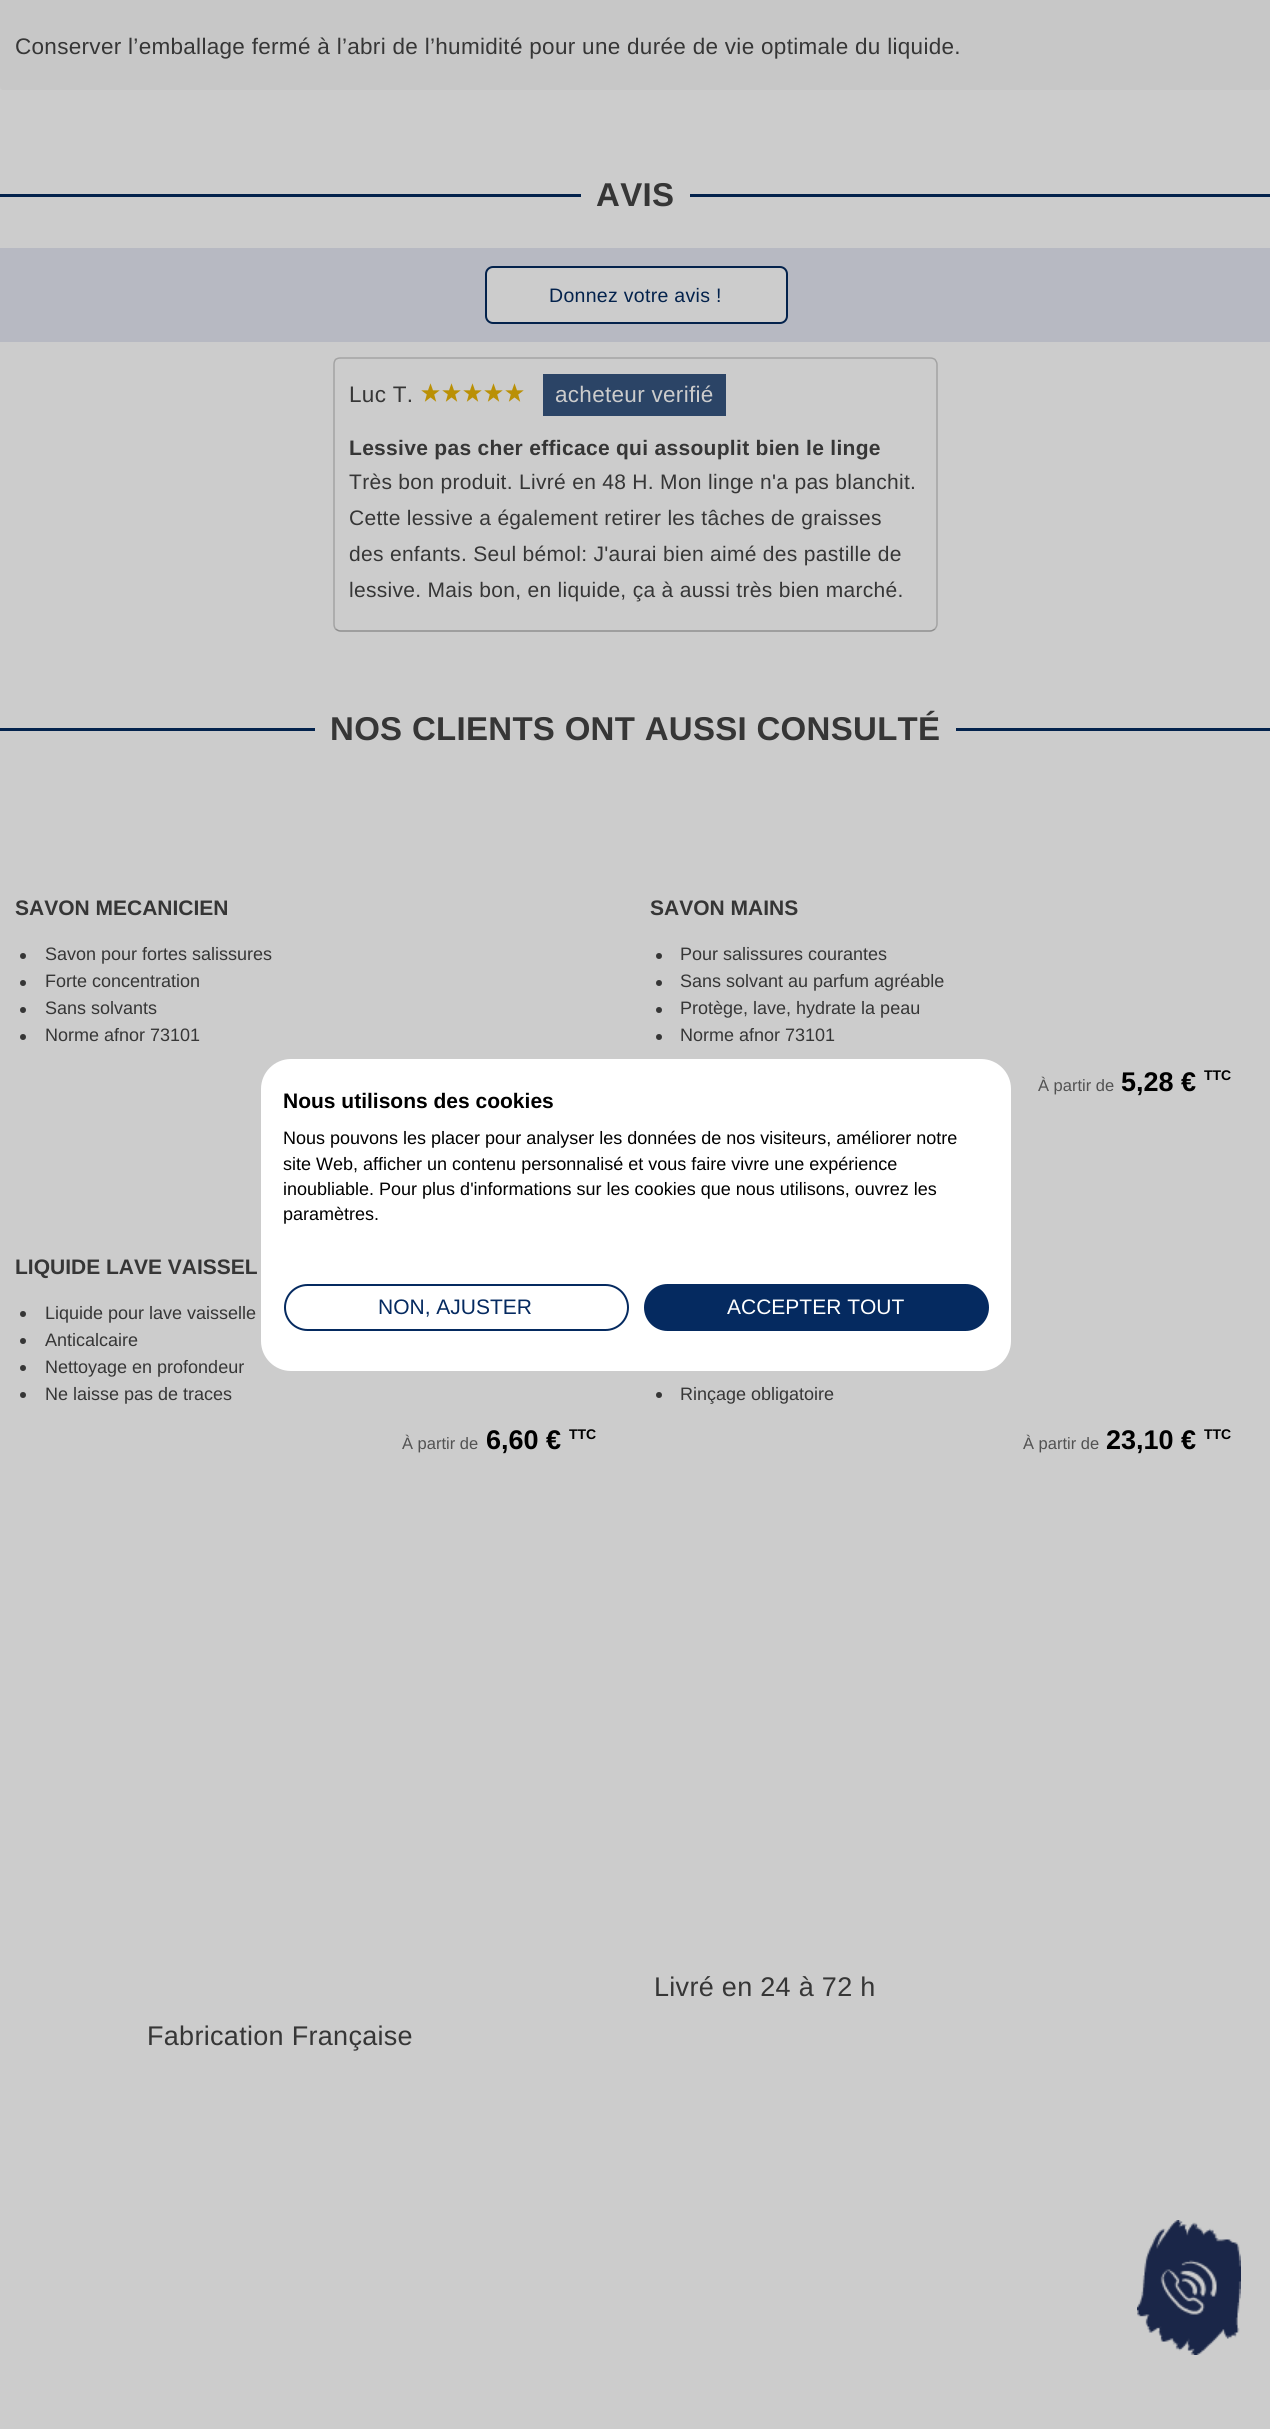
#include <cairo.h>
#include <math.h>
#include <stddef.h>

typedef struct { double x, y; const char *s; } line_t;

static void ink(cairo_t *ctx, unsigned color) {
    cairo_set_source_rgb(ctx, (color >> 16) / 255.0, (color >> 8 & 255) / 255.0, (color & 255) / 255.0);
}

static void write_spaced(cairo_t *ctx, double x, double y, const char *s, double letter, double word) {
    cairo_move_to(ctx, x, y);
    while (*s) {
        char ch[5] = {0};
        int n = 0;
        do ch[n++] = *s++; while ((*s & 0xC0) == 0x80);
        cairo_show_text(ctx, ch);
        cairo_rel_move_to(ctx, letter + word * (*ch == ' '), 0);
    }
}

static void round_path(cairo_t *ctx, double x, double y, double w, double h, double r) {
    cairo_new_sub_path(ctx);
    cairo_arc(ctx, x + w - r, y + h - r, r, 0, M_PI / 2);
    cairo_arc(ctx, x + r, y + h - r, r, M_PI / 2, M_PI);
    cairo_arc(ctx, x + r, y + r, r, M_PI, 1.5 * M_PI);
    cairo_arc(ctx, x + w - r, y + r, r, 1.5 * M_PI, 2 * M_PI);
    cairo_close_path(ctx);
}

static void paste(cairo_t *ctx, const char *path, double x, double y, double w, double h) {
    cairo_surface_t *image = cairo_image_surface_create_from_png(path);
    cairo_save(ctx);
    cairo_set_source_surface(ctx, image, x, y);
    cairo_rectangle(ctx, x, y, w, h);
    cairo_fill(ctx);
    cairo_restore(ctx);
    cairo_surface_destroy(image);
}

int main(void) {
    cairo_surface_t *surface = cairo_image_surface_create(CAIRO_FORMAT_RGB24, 1270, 2429);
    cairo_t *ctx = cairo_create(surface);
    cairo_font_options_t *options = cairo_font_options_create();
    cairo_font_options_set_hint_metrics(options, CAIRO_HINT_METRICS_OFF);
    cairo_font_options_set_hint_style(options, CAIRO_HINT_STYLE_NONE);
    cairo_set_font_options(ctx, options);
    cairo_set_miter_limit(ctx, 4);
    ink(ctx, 0xCCCCCC);
    cairo_paint(ctx);
    ink(ctx, 0xC7C7C7);
    cairo_new_path(ctx);
    cairo_move_to(ctx, 0, -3);
    cairo_line_to(ctx, 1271, -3);
    cairo_line_to(ctx, 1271, 87);
    cairo_curve_to(ctx, 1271, 88.5, 1269.5, 90, 1268, 90);
    cairo_line_to(ctx, 3, 90);
    cairo_curve_to(ctx, 1.5, 90, 0, 88.5, 0, 87);
    cairo_close_path(ctx);
    cairo_fill(ctx);
    cairo_select_font_face(ctx, "Liberation Sans", CAIRO_FONT_SLANT_NORMAL, CAIRO_FONT_WEIGHT_NORMAL);
    cairo_set_font_size(ctx, 22.5);
    ink(ctx, 0x363636);
    write_spaced(ctx, 15, 54, "Conserver l’emballage fermé à l’abri de l’humidité pour une durée de vie optimale du liquide.", 0.3, 0);
    ink(ctx, 0x03224C);
    cairo_rectangle(ctx, 0, 194, 1270, 3);
    cairo_fill(ctx);
    ink(ctx, 0xCCCCCC);
    cairo_rectangle(ctx, 581, 194, 109, 3);
    cairo_fill(ctx);
    cairo_select_font_face(ctx, "Liberation Sans", CAIRO_FONT_SLANT_NORMAL, CAIRO_FONT_WEIGHT_BOLD);
    cairo_set_font_size(ctx, 33);
    ink(ctx, 0x363636);
    write_spaced(ctx, 596, 206, "AVIS", 0.3, 0);
    ink(ctx, 0xB7B9C2);
    cairo_rectangle(ctx, 0, 248, 1270, 94);
    cairo_fill(ctx);
    ink(ctx, 0xCCCCCC);
    round_path(ctx, 486, 267, 301, 56, 7);
    cairo_fill_preserve(ctx);
    ink(ctx, 0x03224C);
    cairo_stroke(ctx);
    cairo_select_font_face(ctx, "Liberation Sans", CAIRO_FONT_SLANT_NORMAL, CAIRO_FONT_WEIGHT_NORMAL);
    cairo_set_font_size(ctx, 19.5);
    write_spaced(ctx, 549, 302, "Donnez votre avis !", 0.3, 0);
    cairo_new_path(ctx);
    cairo_move_to(ctx, 935, 629);
    cairo_curve_to(ctx, 933.5, 630, 932, 631, 930, 631);
    cairo_line_to(ctx, 340.5, 631);
    cairo_curve_to(ctx, 338.5, 631, 337, 630, 335.5, 629);
    ink(ctx, 0x8E8E8E);
    cairo_set_line_width(ctx, 1.5);
    cairo_stroke(ctx);
    cairo_new_path(ctx);
    cairo_move_to(ctx, 335.5, 629);
    cairo_curve_to(ctx, 334.5, 627.5, 334, 626, 334, 624);
    cairo_line_to(ctx, 334, 364.5);
    cairo_curve_to(ctx, 334, 362.5, 334.5, 361, 335.5, 359.5);
    cairo_curve_to(ctx, 337, 358.5, 338.5, 358, 340.5, 358);
    cairo_line_to(ctx, 930, 358);
    cairo_curve_to(ctx, 932, 358, 933.5, 358.5, 935, 359.5);
    cairo_curve_to(ctx, 936, 361, 937, 362.5, 937, 364.5);
    cairo_line_to(ctx, 937, 624);
    cairo_curve_to(ctx, 937, 626, 936, 627.5, 935, 629);
    ink(ctx, 0xA3A3A3);
    cairo_stroke(ctx);
    cairo_set_font_size(ctx, 22.5);
    ink(ctx, 0x363636);
    write_spaced(ctx, 349, 402, "Luc T.", 0.3, 0);
    paste(ctx, "media/1.png", 421, 383, 19, 19);
    paste(ctx, "media/1.png", 442, 383, 19, 19);
    paste(ctx, "media/1.png", 463, 383, 19, 19);
    paste(ctx, "media/1.png", 484, 383, 19, 19);
    paste(ctx, "media/1.png", 505, 383, 19, 19);
    ink(ctx, 0x2B4466);
    cairo_rectangle(ctx, 543, 374, 183, 42);
    cairo_fill(ctx);
    ink(ctx, 0xCCCCCC);
    write_spaced(ctx, 555, 402, "acheteur verifié", 0.3, 0);
    cairo_select_font_face(ctx, "Liberation Sans", CAIRO_FONT_SLANT_NORMAL, CAIRO_FONT_WEIGHT_BOLD);
    cairo_set_font_size(ctx, 21);
    ink(ctx, 0x363636);
    write_spaced(ctx, 349, 455, "Lessive pas cher efficace qui assouplit bien le linge", 0.3, 0);
    cairo_select_font_face(ctx, "Liberation Sans", CAIRO_FONT_SLANT_NORMAL, CAIRO_FONT_WEIGHT_NORMAL);
    {
        static const line_t items[] = {
            {349, 489, "Très bon produit. Livré en 48 H. Mon linge n'a pas blanchit."},
            {349, 525, "Cette lessive a également retirer les tâches de graisses"},
            {349, 561, "des enfants. Seul bémol: J'aurai bien aimé des pastille de"},
            {349, 597, "lessive. Mais bon, en liquide, ça à aussi très bien marché."},
        };
        for (size_t i = 0; i < sizeof items / sizeof *items; i++) {
            write_spaced(ctx, items[i].x, items[i].y, items[i].s, 0.3, 0);
        }
    }
    ink(ctx, 0x03224C);
    cairo_rectangle(ctx, 0, 728, 1270, 3);
    cairo_fill(ctx);
    ink(ctx, 0xCCCCCC);
    cairo_rectangle(ctx, 315, 728, 641, 3);
    cairo_fill(ctx);
    cairo_select_font_face(ctx, "Liberation Sans", CAIRO_FONT_SLANT_NORMAL, CAIRO_FONT_WEIGHT_BOLD);
    cairo_set_font_size(ctx, 33);
    ink(ctx, 0x363636);
    write_spaced(ctx, 330, 740, "NOS CLIENTS ONT AUSSI CONSULTÉ", 0.3, 0);
    cairo_set_font_size(ctx, 21);
    cairo_move_to(ctx, 15, 915);
    cairo_show_text(ctx, "SAVON MECANICIEN");
    cairo_new_path(ctx);
    cairo_arc(ctx, 23, 956, 3, 0, 2 * M_PI);
    cairo_fill(ctx);
    cairo_select_font_face(ctx, "Liberation Sans", CAIRO_FONT_SLANT_NORMAL, CAIRO_FONT_WEIGHT_NORMAL);
    cairo_set_font_size(ctx, 18);
    cairo_move_to(ctx, 45, 960);
    cairo_show_text(ctx, "Savon pour fortes salissures");
    cairo_new_path(ctx);
    cairo_arc(ctx, 23, 983, 3, 0, 2 * M_PI);
    cairo_fill(ctx);
    cairo_move_to(ctx, 45, 987);
    cairo_show_text(ctx, "Forte concentration");
    cairo_new_path(ctx);
    cairo_arc(ctx, 23, 1010, 3, 0, 2 * M_PI);
    cairo_fill(ctx);
    cairo_move_to(ctx, 45, 1014);
    cairo_show_text(ctx, "Sans solvants");
    cairo_new_path(ctx);
    cairo_arc(ctx, 23, 1037, 3, 0, 2 * M_PI);
    cairo_fill(ctx);
    cairo_move_to(ctx, 45, 1041);
    cairo_show_text(ctx, "Norme afnor 73101");
    cairo_select_font_face(ctx, "Liberation Sans", CAIRO_FONT_SLANT_NORMAL, CAIRO_FONT_WEIGHT_BOLD);
    cairo_set_font_size(ctx, 21);
    cairo_move_to(ctx, 650, 915);
    cairo_show_text(ctx, "SAVON MAINS");
    cairo_new_path(ctx);
    cairo_arc(ctx, 659, 956, 3, 0, 2 * M_PI);
    cairo_fill(ctx);
    cairo_select_font_face(ctx, "Liberation Sans", CAIRO_FONT_SLANT_NORMAL, CAIRO_FONT_WEIGHT_NORMAL);
    cairo_set_font_size(ctx, 18);
    cairo_move_to(ctx, 680, 960);
    cairo_show_text(ctx, "Pour salissures courantes");
    cairo_new_path(ctx);
    cairo_arc(ctx, 659, 983, 3, 0, 2 * M_PI);
    cairo_fill(ctx);
    cairo_move_to(ctx, 680, 987);
    cairo_show_text(ctx, "Sans solvant au parfum agréable");
    cairo_new_path(ctx);
    cairo_arc(ctx, 659, 1010, 3, 0, 2 * M_PI);
    cairo_fill(ctx);
    cairo_move_to(ctx, 680, 1014);
    cairo_show_text(ctx, "Protège, lave, hydrate la peau");
    cairo_new_path(ctx);
    cairo_arc(ctx, 659, 1037, 3, 0, 2 * M_PI);
    cairo_fill(ctx);
    cairo_move_to(ctx, 680, 1041);
    cairo_show_text(ctx, "Norme afnor 73101");
    cairo_set_font_size(ctx, 16.5);
    ink(ctx, 0x525252);
    cairo_move_to(ctx, 1038, 1091);
    cairo_show_text(ctx, "À partir de");
    cairo_select_font_face(ctx, "Liberation Sans", CAIRO_FONT_SLANT_NORMAL, CAIRO_FONT_WEIGHT_BOLD);
    cairo_set_font_size(ctx, 27);
    ink(ctx, 0x000000);
    cairo_move_to(ctx, 1121, 1091);
    cairo_show_text(ctx, "5,28 €");
    cairo_set_font_size(ctx, 14);
    cairo_move_to(ctx, 1204, 1080);
    cairo_show_text(ctx, "TTC");
    cairo_set_font_size(ctx, 21);
    ink(ctx, 0x363636);
    cairo_move_to(ctx, 15, 1274);
    cairo_show_text(ctx, "LIQUIDE LAVE VAISSEL");
    cairo_new_path(ctx);
    cairo_arc(ctx, 23, 1314, 3, 0, 2 * M_PI);
    cairo_fill(ctx);
    cairo_select_font_face(ctx, "Liberation Sans", CAIRO_FONT_SLANT_NORMAL, CAIRO_FONT_WEIGHT_NORMAL);
    cairo_set_font_size(ctx, 18);
    cairo_move_to(ctx, 45, 1319);
    cairo_show_text(ctx, "Liquide pour lave vaisselle");
    cairo_new_path(ctx);
    cairo_arc(ctx, 23, 1341, 3, 0, 2 * M_PI);
    cairo_fill(ctx);
    cairo_move_to(ctx, 45, 1346);
    cairo_show_text(ctx, "Anticalcaire");
    cairo_new_path(ctx);
    cairo_arc(ctx, 23, 1368, 3, 0, 2 * M_PI);
    cairo_fill(ctx);
    cairo_move_to(ctx, 45, 1373);
    cairo_show_text(ctx, "Nettoyage en profondeur");
    cairo_new_path(ctx);
    cairo_arc(ctx, 23, 1395, 3, 0, 2 * M_PI);
    cairo_fill(ctx);
    cairo_move_to(ctx, 45, 1400);
    cairo_show_text(ctx, "Ne laisse pas de traces");
    cairo_set_font_size(ctx, 16.5);
    ink(ctx, 0x525252);
    cairo_move_to(ctx, 402, 1449);
    cairo_show_text(ctx, "À partir de");
    cairo_select_font_face(ctx, "Liberation Sans", CAIRO_FONT_SLANT_NORMAL, CAIRO_FONT_WEIGHT_BOLD);
    cairo_set_font_size(ctx, 27);
    ink(ctx, 0x000000);
    cairo_move_to(ctx, 486, 1449);
    cairo_show_text(ctx, "6,60 €");
    cairo_set_font_size(ctx, 14);
    cairo_move_to(ctx, 569, 1439);
    cairo_show_text(ctx, "TTC");
    ink(ctx, 0x363636);
    cairo_new_path(ctx);
    cairo_arc(ctx, 659, 1395, 3, 0, 2 * M_PI);
    cairo_fill(ctx);
    cairo_select_font_face(ctx, "Liberation Sans", CAIRO_FONT_SLANT_NORMAL, CAIRO_FONT_WEIGHT_NORMAL);
    cairo_set_font_size(ctx, 18);
    cairo_move_to(ctx, 680, 1400);
    cairo_show_text(ctx, "Rinçage obligatoire");
    cairo_set_font_size(ctx, 16.5);
    ink(ctx, 0x525252);
    cairo_move_to(ctx, 1023, 1449);
    cairo_show_text(ctx, "À partir de");
    cairo_select_font_face(ctx, "Liberation Sans", CAIRO_FONT_SLANT_NORMAL, CAIRO_FONT_WEIGHT_BOLD);
    cairo_set_font_size(ctx, 27);
    ink(ctx, 0x000000);
    cairo_move_to(ctx, 1106, 1449);
    cairo_show_text(ctx, "23,10 €");
    cairo_set_font_size(ctx, 14);
    cairo_move_to(ctx, 1204, 1439);
    cairo_show_text(ctx, "TTC");
    ink(ctx, 0xFFFFFF);
    round_path(ctx, 261, 1059, 750, 312, 30);
    cairo_fill(ctx);
    cairo_set_font_size(ctx, 21);
    ink(ctx, 0x000000);
    cairo_move_to(ctx, 283, 1108);
    cairo_show_text(ctx, "Nous utilisons des cookies");
    cairo_select_font_face(ctx, "Liberation Sans", CAIRO_FONT_SLANT_NORMAL, CAIRO_FONT_WEIGHT_NORMAL);
    cairo_set_font_size(ctx, 18);
    {
        static const line_t items[] = {
            {283, 1144, "Nous pouvons les placer pour analyser les données de nos visiteurs, améliorer notre"},
            {283, 1170, "site Web, afficher un contenu personnalisé et vous faire vivre une expérience"},
            {283, 1195, "inoubliable. Pour plus d'informations sur les cookies que nous utilisons, ouvrez les"},
            {283, 1220, "paramètres."},
        };
        for (size_t i = 0; i < sizeof items / sizeof *items; i++) {
            cairo_move_to(ctx, items[i].x, items[i].y);
            cairo_show_text(ctx, items[i].s);
        }
    }
    round_path(ctx, 285, 1285, 343, 45, 22.5);
    ink(ctx, 0x052A60);
    cairo_set_line_width(ctx, 2);
    cairo_stroke(ctx);
    cairo_set_font_size(ctx, 21);
    cairo_move_to(ctx, 378, 1314);
    cairo_show_text(ctx, "NON, AJUSTER");
    round_path(ctx, 645, 1285, 343, 45, 22.5);
    cairo_fill_preserve(ctx);
    cairo_stroke(ctx);
    ink(ctx, 0xFFFFFF);
    cairo_move_to(ctx, 727, 1314);
    cairo_show_text(ctx, "ACCEPTER TOUT");
    cairo_set_font_size(ctx, 27);
    ink(ctx, 0x363636);
    write_spaced(ctx, 654, 1996, "Livré en 24 à 72 h", 0.3, 0);
    write_spaced(ctx, 147, 2045, "Fabrication Française", 0.3, 0);
    paste(ctx, "media/2.png", 1137, 2220, 104, 135);
    cairo_surface_write_to_png(surface, "image.png");
    cairo_font_options_destroy(options);
    cairo_destroy(ctx);
    cairo_surface_destroy(surface);
    return 0;
}
